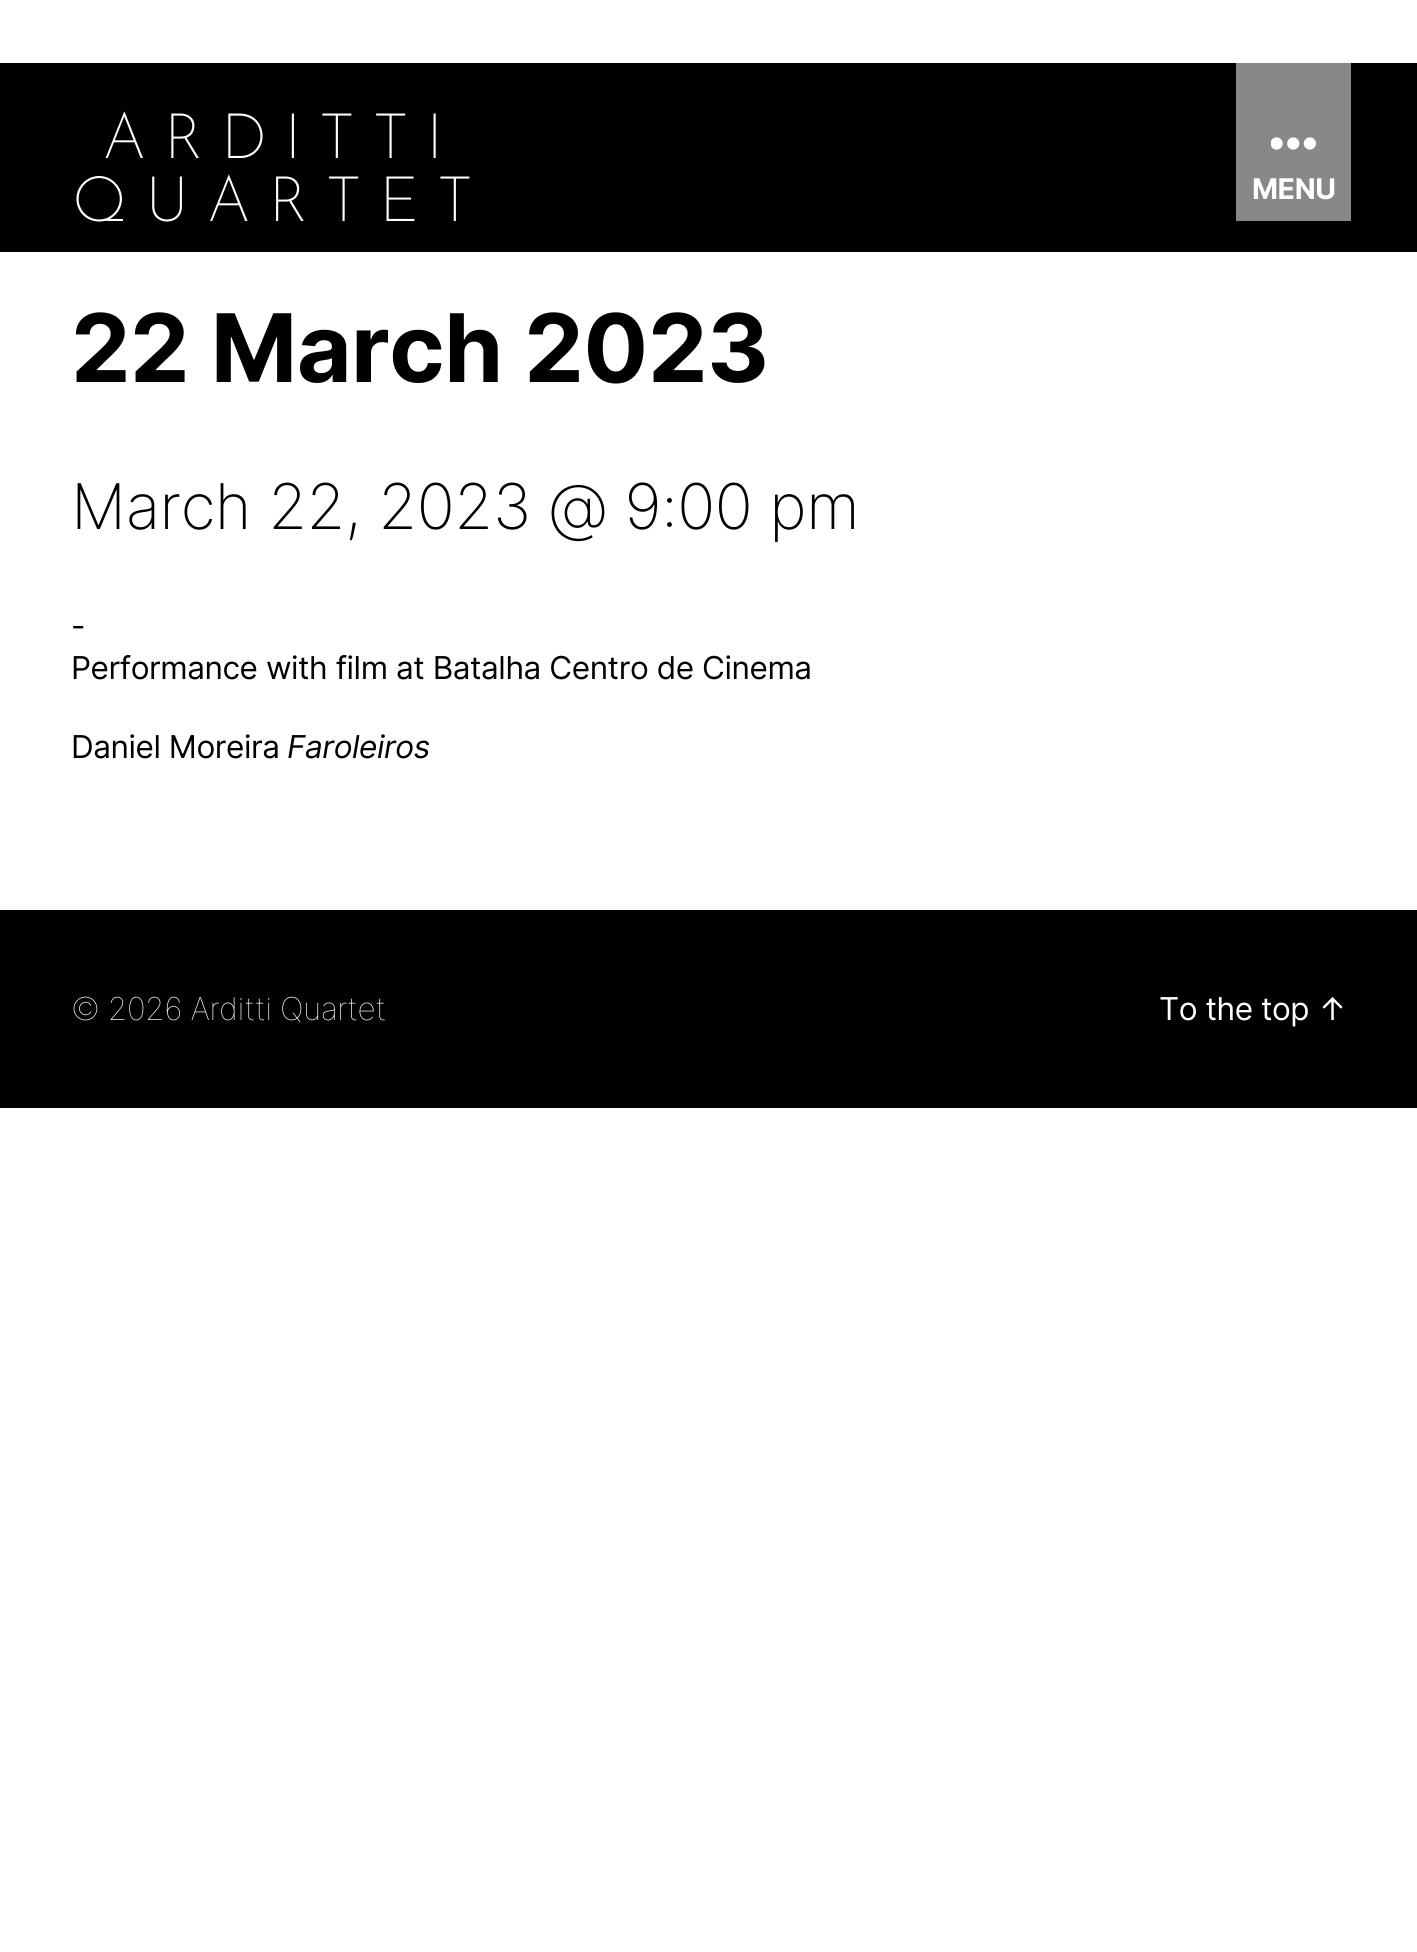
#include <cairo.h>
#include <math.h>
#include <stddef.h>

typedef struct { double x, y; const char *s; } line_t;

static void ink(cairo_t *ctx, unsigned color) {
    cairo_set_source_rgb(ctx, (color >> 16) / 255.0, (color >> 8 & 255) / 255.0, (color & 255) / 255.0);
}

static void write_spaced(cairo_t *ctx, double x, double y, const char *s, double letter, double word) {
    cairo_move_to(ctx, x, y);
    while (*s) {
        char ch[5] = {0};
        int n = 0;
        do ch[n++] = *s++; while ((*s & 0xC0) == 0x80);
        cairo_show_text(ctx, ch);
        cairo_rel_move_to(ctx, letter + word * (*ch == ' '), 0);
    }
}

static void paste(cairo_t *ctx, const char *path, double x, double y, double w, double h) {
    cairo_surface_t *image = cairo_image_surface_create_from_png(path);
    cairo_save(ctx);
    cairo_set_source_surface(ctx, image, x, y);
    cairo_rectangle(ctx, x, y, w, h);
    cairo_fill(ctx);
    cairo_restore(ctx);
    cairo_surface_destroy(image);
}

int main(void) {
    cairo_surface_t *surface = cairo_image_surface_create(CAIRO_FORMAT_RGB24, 1417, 1952);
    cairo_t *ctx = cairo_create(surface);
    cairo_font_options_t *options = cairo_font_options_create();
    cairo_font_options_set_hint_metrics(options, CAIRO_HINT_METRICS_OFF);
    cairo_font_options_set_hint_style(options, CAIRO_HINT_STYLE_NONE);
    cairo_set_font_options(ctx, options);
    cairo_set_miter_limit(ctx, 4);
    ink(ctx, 0xFFFFFF);
    cairo_paint(ctx);
    ink(ctx, 0x000000);
    cairo_rectangle(ctx, 0, 63, 1417, 189);
    cairo_fill(ctx);
    cairo_select_font_face(ctx, "Josefin Sans ExtraLight", CAIRO_FONT_SLANT_NORMAL, CAIRO_FONT_WEIGHT_NORMAL);
    cairo_set_font_size(ctx, 63);
    ink(ctx, 0xFFFFFF);
    write_spaced(ctx, 102, 158, "ARDITTI", 17.5, 0);
    write_spaced(ctx, 72, 221, "QUARTET", 17.5, 0);
    ink(ctx, 0x888888);
    cairo_rectangle(ctx, 1236, 63, 115, 158);
    cairo_fill(ctx);
    paste(ctx, "media/1.png", 1271, 137, 45, 13);
    cairo_select_font_face(ctx, "Inter", CAIRO_FONT_SLANT_NORMAL, CAIRO_FONT_WEIGHT_BOLD);
    cairo_set_font_size(ctx, 28.5);
    ink(ctx, 0xFFFFFF);
    write_spaced(ctx, 1252, 199, "MENU", -0.45, 0);
    cairo_set_font_size(ctx, 94.5);
    ink(ctx, 0x000000);
    write_spaced(ctx, 71, 382, "22 March 2023", -0.45, 0);
    cairo_select_font_face(ctx, "Inter ExtraLight", CAIRO_FONT_SLANT_NORMAL, CAIRO_FONT_WEIGHT_NORMAL);
    cairo_set_font_size(ctx, 63);
    write_spaced(ctx, 71, 529, "March 22, 2023 @ 9:00 pm", -0.45, 0);
    cairo_select_font_face(ctx, "Inter", CAIRO_FONT_SLANT_NORMAL, CAIRO_FONT_WEIGHT_NORMAL);
    cairo_set_font_size(ctx, 31.5);
    {
        static const line_t items[] = {
            {71, 637, "-"},
            {71, 679, "Performance with film at Batalha Centro de Cinema"},
            {71, 758, "Daniel Moreira"},
        };
        for (size_t i = 0; i < sizeof items / sizeof *items; i++) {
            write_spaced(ctx, items[i].x, items[i].y, items[i].s, -0.45, 0);
        }
    }
    cairo_select_font_face(ctx, "Inter", CAIRO_FONT_SLANT_ITALIC, CAIRO_FONT_WEIGHT_NORMAL);
    write_spaced(ctx, 287, 758, "Faroleiros", -0.45, 0);
    cairo_rectangle(ctx, 0, 910, 1417, 198);
    cairo_fill(ctx);
    cairo_select_font_face(ctx, "Inter Thin", CAIRO_FONT_SLANT_NORMAL, CAIRO_FONT_WEIGHT_NORMAL);
    ink(ctx, 0xFFFFFF);
    write_spaced(ctx, 71, 1020, "© 2026 Arditti Quartet", -0.45, 0);
    cairo_select_font_face(ctx, "Inter", CAIRO_FONT_SLANT_NORMAL, CAIRO_FONT_WEIGHT_NORMAL);
    write_spaced(ctx, 1159, 1020, "To the top ↑", -0.45, 0);
    cairo_surface_write_to_png(surface, "image.png");
    cairo_font_options_destroy(options);
    cairo_destroy(ctx);
    cairo_surface_destroy(surface);
    return 0;
}
